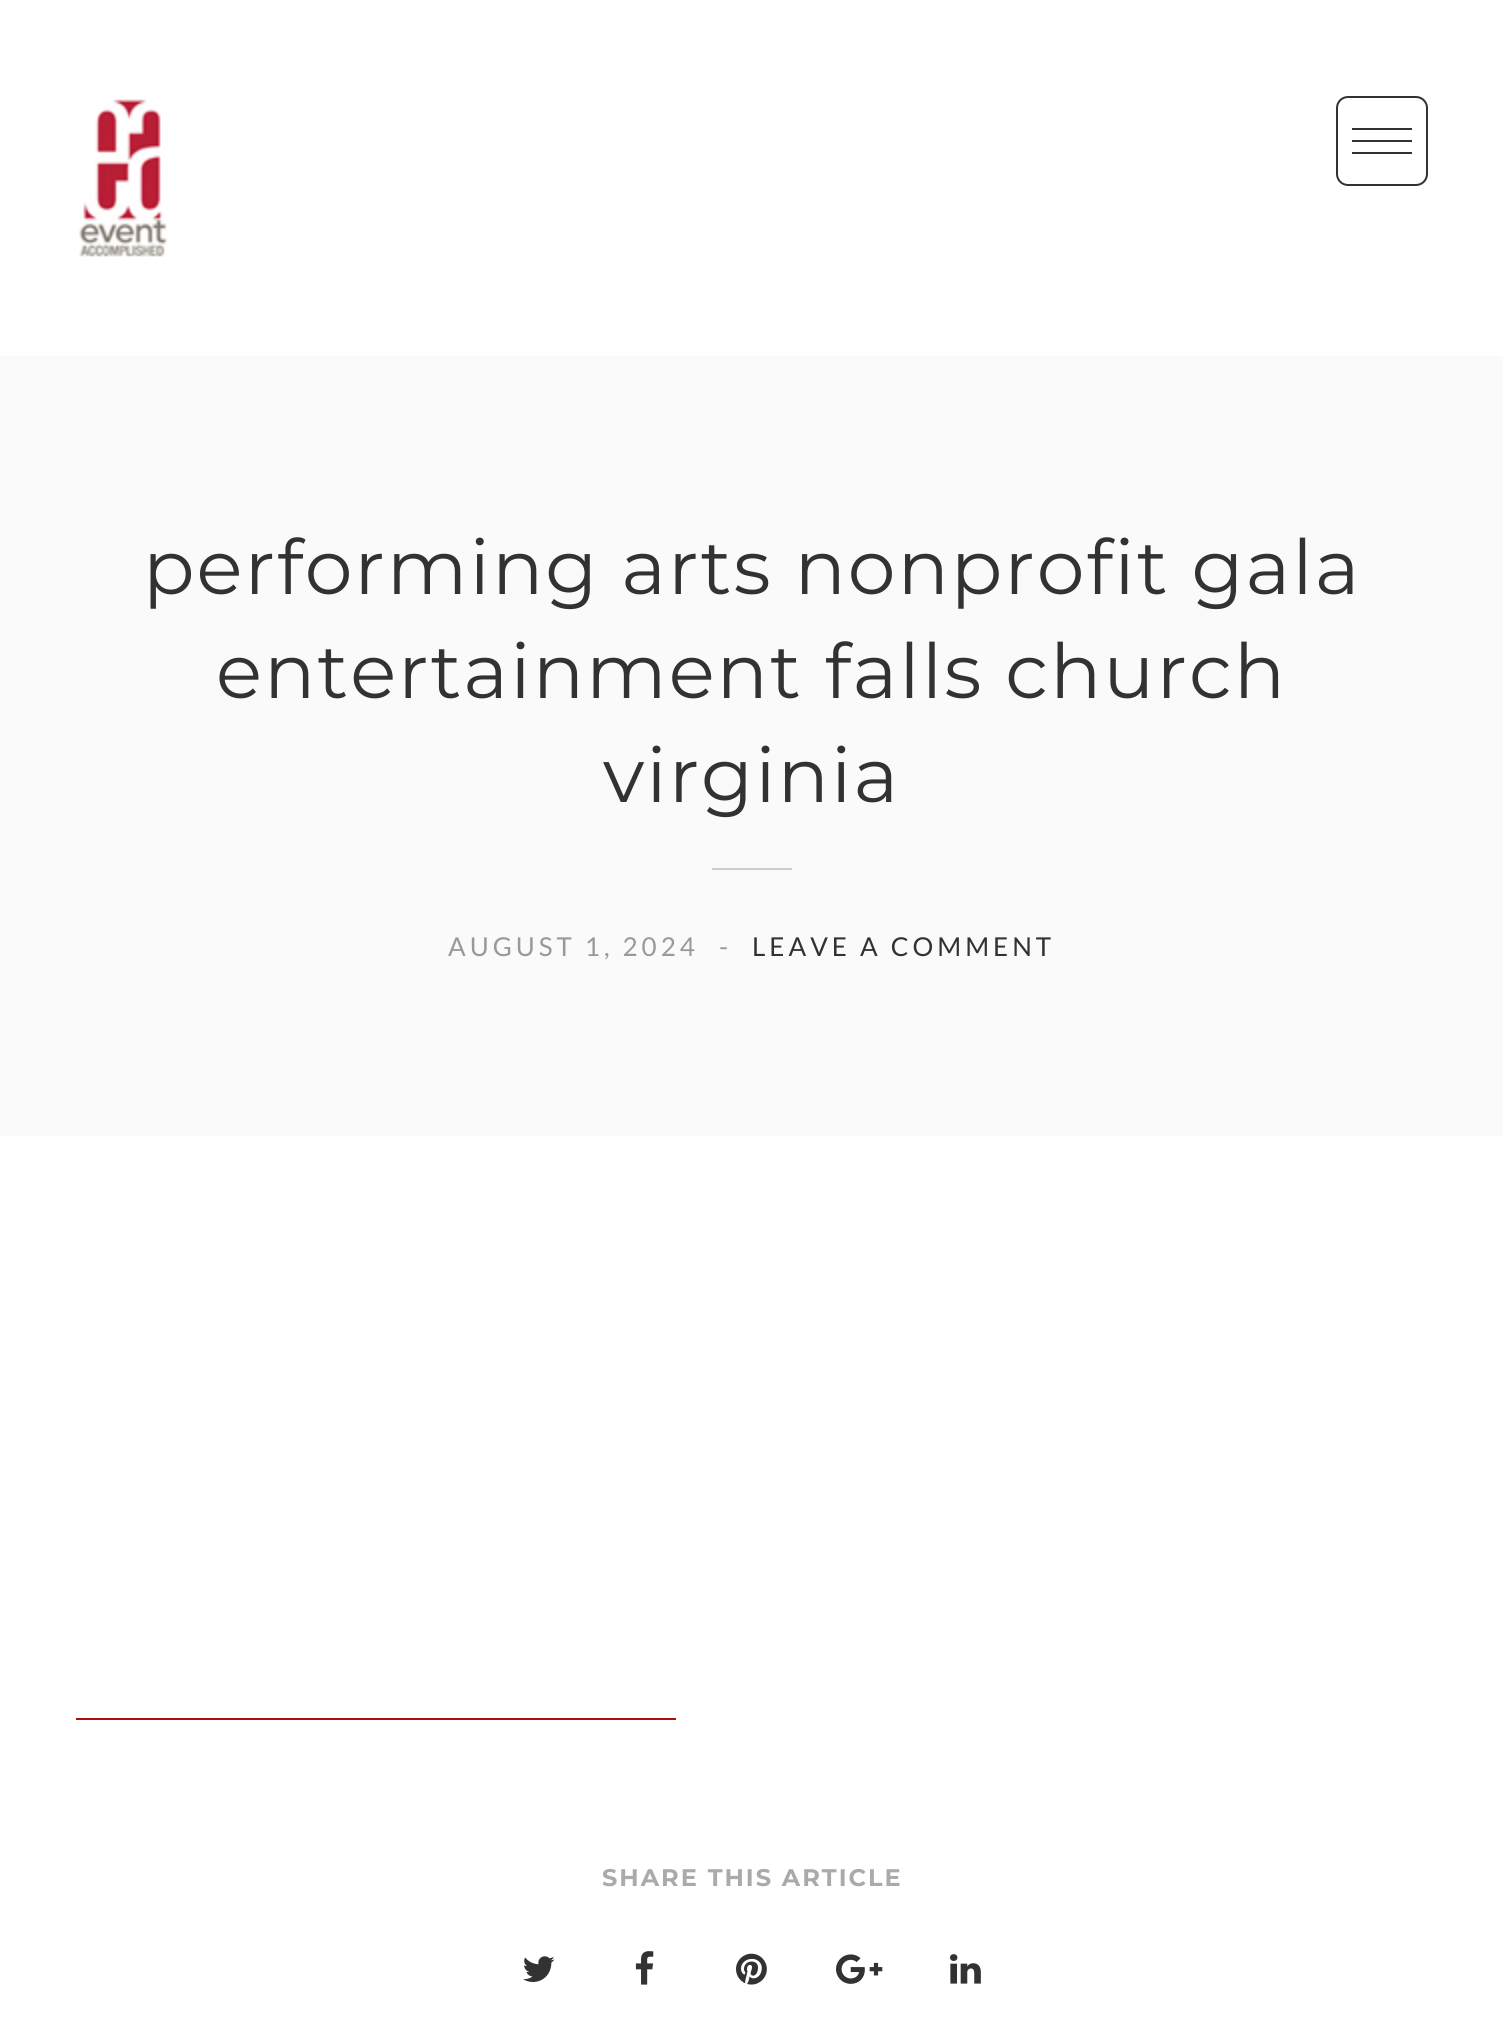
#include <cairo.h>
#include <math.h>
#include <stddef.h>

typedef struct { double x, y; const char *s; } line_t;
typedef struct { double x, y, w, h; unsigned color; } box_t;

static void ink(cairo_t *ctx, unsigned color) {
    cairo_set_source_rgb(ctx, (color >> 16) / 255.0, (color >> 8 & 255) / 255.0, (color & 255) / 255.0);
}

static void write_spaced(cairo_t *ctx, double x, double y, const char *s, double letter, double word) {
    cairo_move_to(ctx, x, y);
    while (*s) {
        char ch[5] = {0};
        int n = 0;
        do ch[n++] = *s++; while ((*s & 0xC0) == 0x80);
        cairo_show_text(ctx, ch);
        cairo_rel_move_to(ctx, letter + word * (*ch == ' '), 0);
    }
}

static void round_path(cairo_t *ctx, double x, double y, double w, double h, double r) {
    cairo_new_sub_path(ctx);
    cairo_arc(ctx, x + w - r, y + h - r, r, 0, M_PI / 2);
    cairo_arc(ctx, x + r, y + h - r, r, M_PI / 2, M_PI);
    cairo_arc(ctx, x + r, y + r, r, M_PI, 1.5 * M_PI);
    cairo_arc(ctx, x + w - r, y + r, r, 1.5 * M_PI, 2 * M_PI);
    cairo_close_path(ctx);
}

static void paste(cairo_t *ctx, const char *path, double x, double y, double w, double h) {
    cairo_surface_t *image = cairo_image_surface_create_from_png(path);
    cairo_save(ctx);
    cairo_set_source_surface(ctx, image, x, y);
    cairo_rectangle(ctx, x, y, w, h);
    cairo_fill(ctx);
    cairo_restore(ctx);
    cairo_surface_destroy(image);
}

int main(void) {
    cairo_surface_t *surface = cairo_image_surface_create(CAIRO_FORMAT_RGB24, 1503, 2029);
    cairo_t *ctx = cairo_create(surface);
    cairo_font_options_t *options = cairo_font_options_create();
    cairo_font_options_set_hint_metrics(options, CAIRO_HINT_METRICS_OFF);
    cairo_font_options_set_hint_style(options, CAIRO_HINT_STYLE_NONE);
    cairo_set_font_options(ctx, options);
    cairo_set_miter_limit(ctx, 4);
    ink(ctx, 0xFFFFFF);
    cairo_paint(ctx);
    paste(ctx, "media/1.png", 79, 99, 88, 158);
    round_path(ctx, 1337, 97, 90, 88, 11);
    ink(ctx, 0x323232);
    cairo_stroke(ctx);
    {
        static const box_t items[] = {
            {1352, 128, 60, 2, 0x323232},
            {1352, 140, 60, 2, 0x323232},
            {1352, 152, 60, 2, 0x323232},
            {0, 356, 1503, 780, 0xFAFAFA},
        };
        for (size_t i = 0; i < sizeof items / sizeof *items; i++) {
            ink(ctx, items[i].color);
            cairo_rectangle(ctx, items[i].x, items[i].y, items[i].w, items[i].h);
            cairo_fill(ctx);
        }
    }
    cairo_select_font_face(ctx, "Montserrat", CAIRO_FONT_SLANT_NORMAL, CAIRO_FONT_WEIGHT_NORMAL);
    cairo_set_font_size(ctx, 76);
    ink(ctx, 0x323232);
    {
        static const line_t items[] = {
            {143, 594, "performing arts nonprofit gala"},
            {216, 698, "entertainment falls church"},
            {603, 802, "virginia"},
        };
        for (size_t i = 0; i < sizeof items / sizeof *items; i++) {
            write_spaced(ctx, items[i].x, items[i].y, items[i].s, 2, 0);
        }
    }
    ink(ctx, 0xCCCCCC);
    cairo_rectangle(ctx, 712, 868, 80, 2);
    cairo_fill(ctx);
    cairo_select_font_face(ctx, "Lato", CAIRO_FONT_SLANT_NORMAL, CAIRO_FONT_WEIGHT_NORMAL);
    cairo_set_font_size(ctx, 26);
    ink(ctx, 0x999999);
    write_spaced(ctx, 448, 956, "AUGUST 1, 2024", 4, 0);
    write_spaced(ctx, 719, 956, "-", 4, 0);
    ink(ctx, 0x323232);
    write_spaced(ctx, 752, 956, "LEAVE A COMMENT", 4, 0);
    ink(ctx, 0xB00E0E);
    cairo_rectangle(ctx, 76, 1718, 600, 2);
    cairo_fill(ctx);
    cairo_select_font_face(ctx, "Montserrat", CAIRO_FONT_SLANT_NORMAL, CAIRO_FONT_WEIGHT_BOLD);
    cairo_set_font_size(ctx, 24);
    ink(ctx, 0xAAAAAA);
    write_spaced(ctx, 602, 1886, "SHARE THIS ARTICLE", 2, 0);
    paste(ctx, "media/2.png", 523, 1956, 32, 26);
    paste(ctx, "media/3.png", 635, 1951, 19, 34);
    paste(ctx, "media/4.png", 736, 1953, 31, 32);
    paste(ctx, "media/5.png", 836, 1954, 47, 30);
    paste(ctx, "media/6.png", 950, 1954, 31, 30);
    cairo_surface_write_to_png(surface, "image.png");
    cairo_font_options_destroy(options);
    cairo_destroy(ctx);
    cairo_surface_destroy(surface);
    return 0;
}
